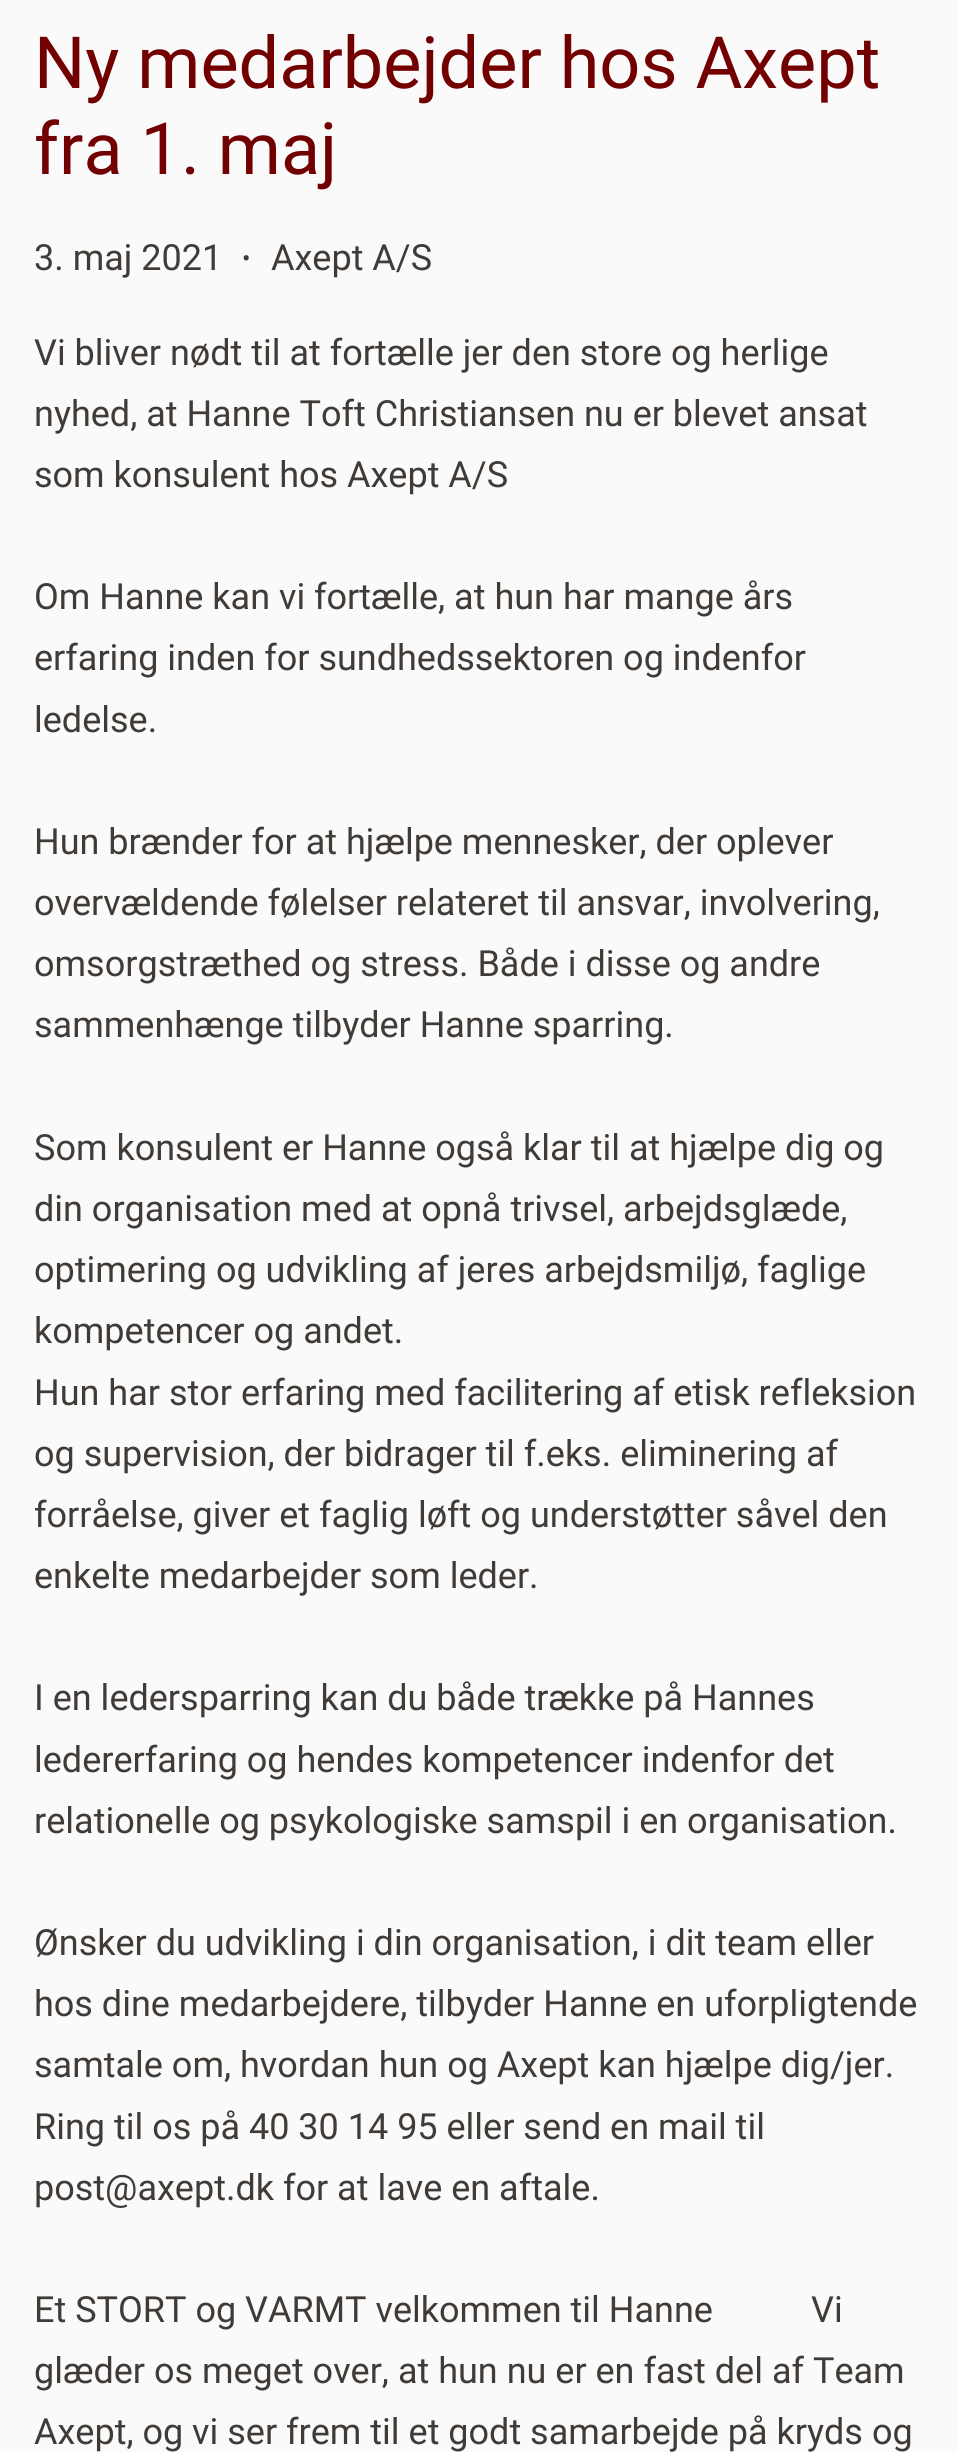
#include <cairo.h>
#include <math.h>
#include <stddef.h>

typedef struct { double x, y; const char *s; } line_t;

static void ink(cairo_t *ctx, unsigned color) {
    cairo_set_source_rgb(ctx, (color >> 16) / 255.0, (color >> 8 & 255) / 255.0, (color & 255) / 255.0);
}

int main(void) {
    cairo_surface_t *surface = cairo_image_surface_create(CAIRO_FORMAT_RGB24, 958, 2452);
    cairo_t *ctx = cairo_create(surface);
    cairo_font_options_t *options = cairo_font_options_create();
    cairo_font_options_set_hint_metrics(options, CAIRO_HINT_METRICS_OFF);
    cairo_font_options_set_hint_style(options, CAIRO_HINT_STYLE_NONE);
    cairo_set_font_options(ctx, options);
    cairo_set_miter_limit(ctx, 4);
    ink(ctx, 0xFAFAFA);
    cairo_paint(ctx);
    cairo_select_font_face(ctx, "Roboto", CAIRO_FONT_SLANT_NORMAL, CAIRO_FONT_WEIGHT_NORMAL);
    cairo_set_font_size(ctx, 72);
    ink(ctx, 0x730000);
    cairo_move_to(ctx, 34, 88);
    cairo_show_text(ctx, "Ny medarbejder hos Axept");
    cairo_move_to(ctx, 34, 174);
    cairo_show_text(ctx, "fra 1. maj");
    cairo_set_font_size(ctx, 36);
    ink(ctx, 0x403B37);
    cairo_move_to(ctx, 34, 270);
    cairo_show_text(ctx, "3. maj 2021");
    cairo_set_font_size(ctx, 25);
    cairo_move_to(ctx, 242, 267);
    cairo_show_text(ctx, "•");
    cairo_set_font_size(ctx, 36);
    {
        static const line_t items[] = {
            {271, 270, "Axept A/S"},
            {34, 365, "Vi bliver nødt til at fortælle jer den store og herlige"},
            {34, 426, "nyhed, at Hanne Toft Christiansen nu er blevet ansat"},
            {34, 487, "som konsulent hos Axept A/S"},
            {34, 609, "Om Hanne kan vi fortælle, at hun har mange års"},
            {34, 670, "erfaring inden for sundhedssektoren og indenfor"},
            {34, 732, "ledelse."},
            {34, 854, "Hun brænder for at hjælpe mennesker, der oplever"},
            {34, 915, "overvældende følelser relateret til ansvar, involvering,"},
            {34, 976, "omsorgstræthed og stress. Både i disse og andre"},
            {34, 1037, "sammenhænge tilbyder Hanne sparring."},
            {34, 1160, "Som konsulent er Hanne også klar til at hjælpe dig og"},
            {34, 1221, "din organisation med at opnå trivsel, arbejdsglæde,"},
            {34, 1282, "optimering og udvikling af jeres arbejdsmiljø, faglige"},
            {34, 1343, "kompetencer og andet."},
            {34, 1405, "Hun har stor erfaring med facilitering af etisk refleksion"},
            {34, 1466, "og supervision, der bidrager til f.eks. eliminering af"},
            {34, 1527, "forråelse, giver et faglig løft og understøtter såvel den"},
            {34, 1588, "enkelte medarbejder som leder."},
            {34, 1710, "I en ledersparring kan du både trække på Hannes"},
            {34, 1772, "ledererfaring og hendes kompetencer indenfor det"},
            {34, 1833, "relationelle og psykologiske samspil i en organisation."},
            {34, 1955, "Ønsker du udvikling i din organisation, i dit team eller"},
            {34, 2016, "hos dine medarbejdere, tilbyder Hanne en uforpligtende"},
            {34, 2077, "samtale om, hvordan hun og Axept kan hjælpe dig/jer."},
            {34, 2139, "Ring til os på 40 30 14 95 eller send en mail til"},
            {34, 2200, "post@axept.dk for at lave en aftale."},
            {34, 2322, "Et STORT og VARMT velkommen til Hanne"},
            {811, 2322, "Vi"},
            {34, 2383, "glæder os meget over, at hun nu er en fast del af Team"},
            {34, 2444, "Axept, og vi ser frem til et godt samarbejde på kryds og"},
        };
        for (size_t i = 0; i < sizeof items / sizeof *items; i++) {
            cairo_move_to(ctx, items[i].x, items[i].y);
            cairo_show_text(ctx, items[i].s);
        }
    }
    cairo_surface_write_to_png(surface, "image.png");
    cairo_font_options_destroy(options);
    cairo_destroy(ctx);
    cairo_surface_destroy(surface);
    return 0;
}
